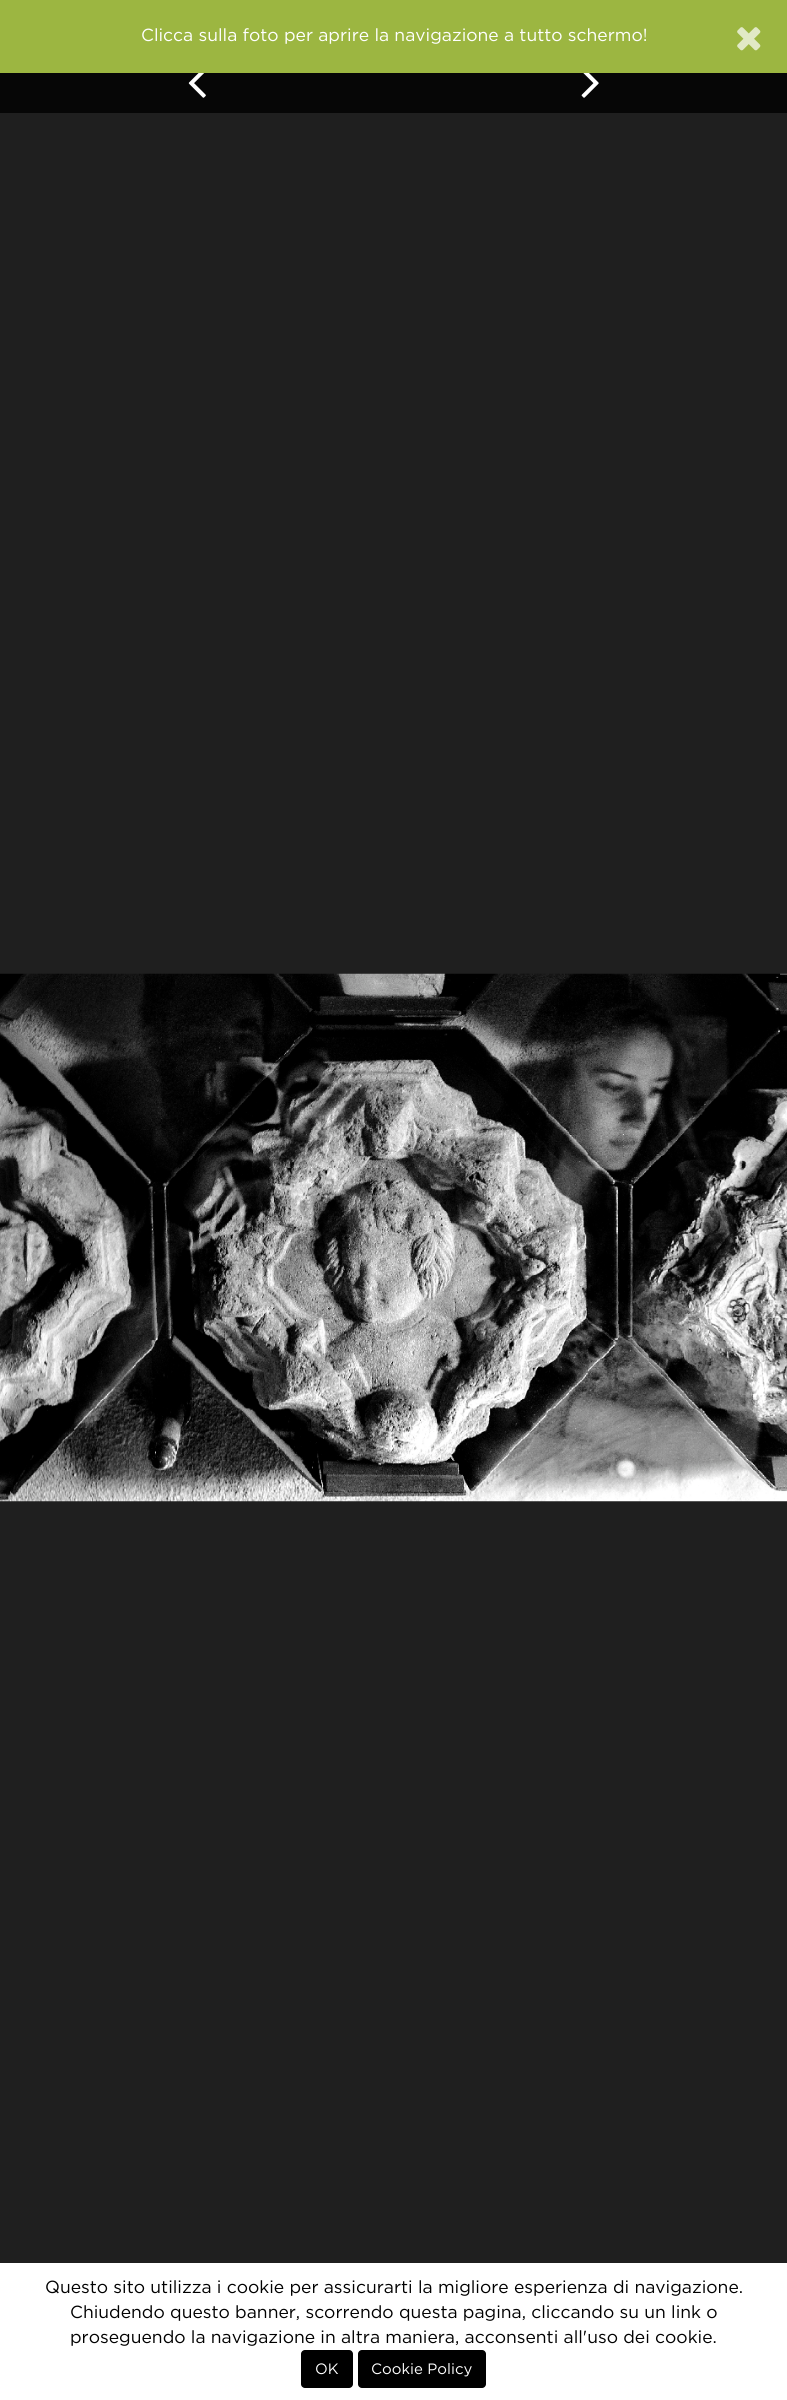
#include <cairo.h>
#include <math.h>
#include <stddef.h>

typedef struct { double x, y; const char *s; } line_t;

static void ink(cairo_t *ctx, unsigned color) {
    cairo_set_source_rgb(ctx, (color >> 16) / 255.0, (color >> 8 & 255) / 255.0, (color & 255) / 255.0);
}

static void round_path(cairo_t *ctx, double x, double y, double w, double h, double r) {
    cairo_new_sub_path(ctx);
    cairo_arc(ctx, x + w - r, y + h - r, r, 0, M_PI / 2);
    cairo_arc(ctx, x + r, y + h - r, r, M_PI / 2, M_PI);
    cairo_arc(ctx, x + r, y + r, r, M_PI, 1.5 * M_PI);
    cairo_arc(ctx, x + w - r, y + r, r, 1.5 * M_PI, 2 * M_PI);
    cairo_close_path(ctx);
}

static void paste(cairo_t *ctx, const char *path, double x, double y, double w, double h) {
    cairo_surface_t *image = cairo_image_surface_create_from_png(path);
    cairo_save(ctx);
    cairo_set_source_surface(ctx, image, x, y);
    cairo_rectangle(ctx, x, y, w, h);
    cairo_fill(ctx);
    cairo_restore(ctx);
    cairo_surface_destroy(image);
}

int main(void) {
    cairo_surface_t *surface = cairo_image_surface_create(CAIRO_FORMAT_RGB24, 787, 2400);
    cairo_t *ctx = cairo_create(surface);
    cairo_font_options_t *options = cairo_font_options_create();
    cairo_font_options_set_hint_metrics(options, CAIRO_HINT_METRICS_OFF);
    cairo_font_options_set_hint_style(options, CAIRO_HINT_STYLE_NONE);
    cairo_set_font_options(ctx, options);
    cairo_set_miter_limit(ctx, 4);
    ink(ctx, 0x1F1F1F);
    cairo_paint(ctx);
    ink(ctx, 0x9CB641);
    cairo_rectangle(ctx, 0, 0, 787, 73);
    cairo_fill(ctx);
    cairo_select_font_face(ctx, "Gotham", CAIRO_FONT_SLANT_NORMAL, CAIRO_FONT_WEIGHT_NORMAL);
    cairo_set_font_size(ctx, 17.5);
    ink(ctx, 0xFFFFFF);
    cairo_move_to(ctx, 141, 41);
    cairo_show_text(ctx, "Clicca sulla foto per aprire la navigazione a tutto schermo!");
    paste(ctx, "media/1.png", 737, 27, 24, 24);
    ink(ctx, 0x060606);
    cairo_rectangle(ctx, 0, 73, 787, 40);
    cairo_fill(ctx);
    paste(ctx, "media/2.png", 188, 73, 18, 25);
    paste(ctx, "media/3.png", 581, 73, 18, 25);
    paste(ctx, "media/4.png", 0, 973, 787, 529);
    ink(ctx, 0xFFFFFF);
    cairo_rectangle(ctx, 0, 2263, 787, 137);
    cairo_fill(ctx);
    ink(ctx, 0x000000);
    {
        static const line_t items[] = {
            {45, 2293, "Questo sito utilizza i cookie per assicurarti la migliore esperienza di navigazione."},
            {70, 2318, "Chiudendo questo banner, scorrendo questa pagina, cliccando su un link o"},
            {70, 2343, "proseguendo la navigazione in altra maniera, acconsenti all'uso dei cookie."},
        };
        for (size_t i = 0; i < sizeof items / sizeof *items; i++) {
            cairo_move_to(ctx, items[i].x, items[i].y);
            cairo_show_text(ctx, items[i].s);
        }
    }
    round_path(ctx, 301, 2350, 52, 38, 4);
    cairo_fill(ctx);
    cairo_set_font_size(ctx, 15);
    ink(ctx, 0xFFFFFF);
    cairo_move_to(ctx, 315, 2374);
    cairo_show_text(ctx, "OK");
    ink(ctx, 0x000000);
    round_path(ctx, 358, 2350, 128, 38, 4);
    cairo_fill(ctx);
    ink(ctx, 0xFFFFFF);
    cairo_move_to(ctx, 371, 2374);
    cairo_show_text(ctx, "Cookie Policy");
    cairo_surface_write_to_png(surface, "image.png");
    cairo_font_options_destroy(options);
    cairo_destroy(ctx);
    cairo_surface_destroy(surface);
    return 0;
}
